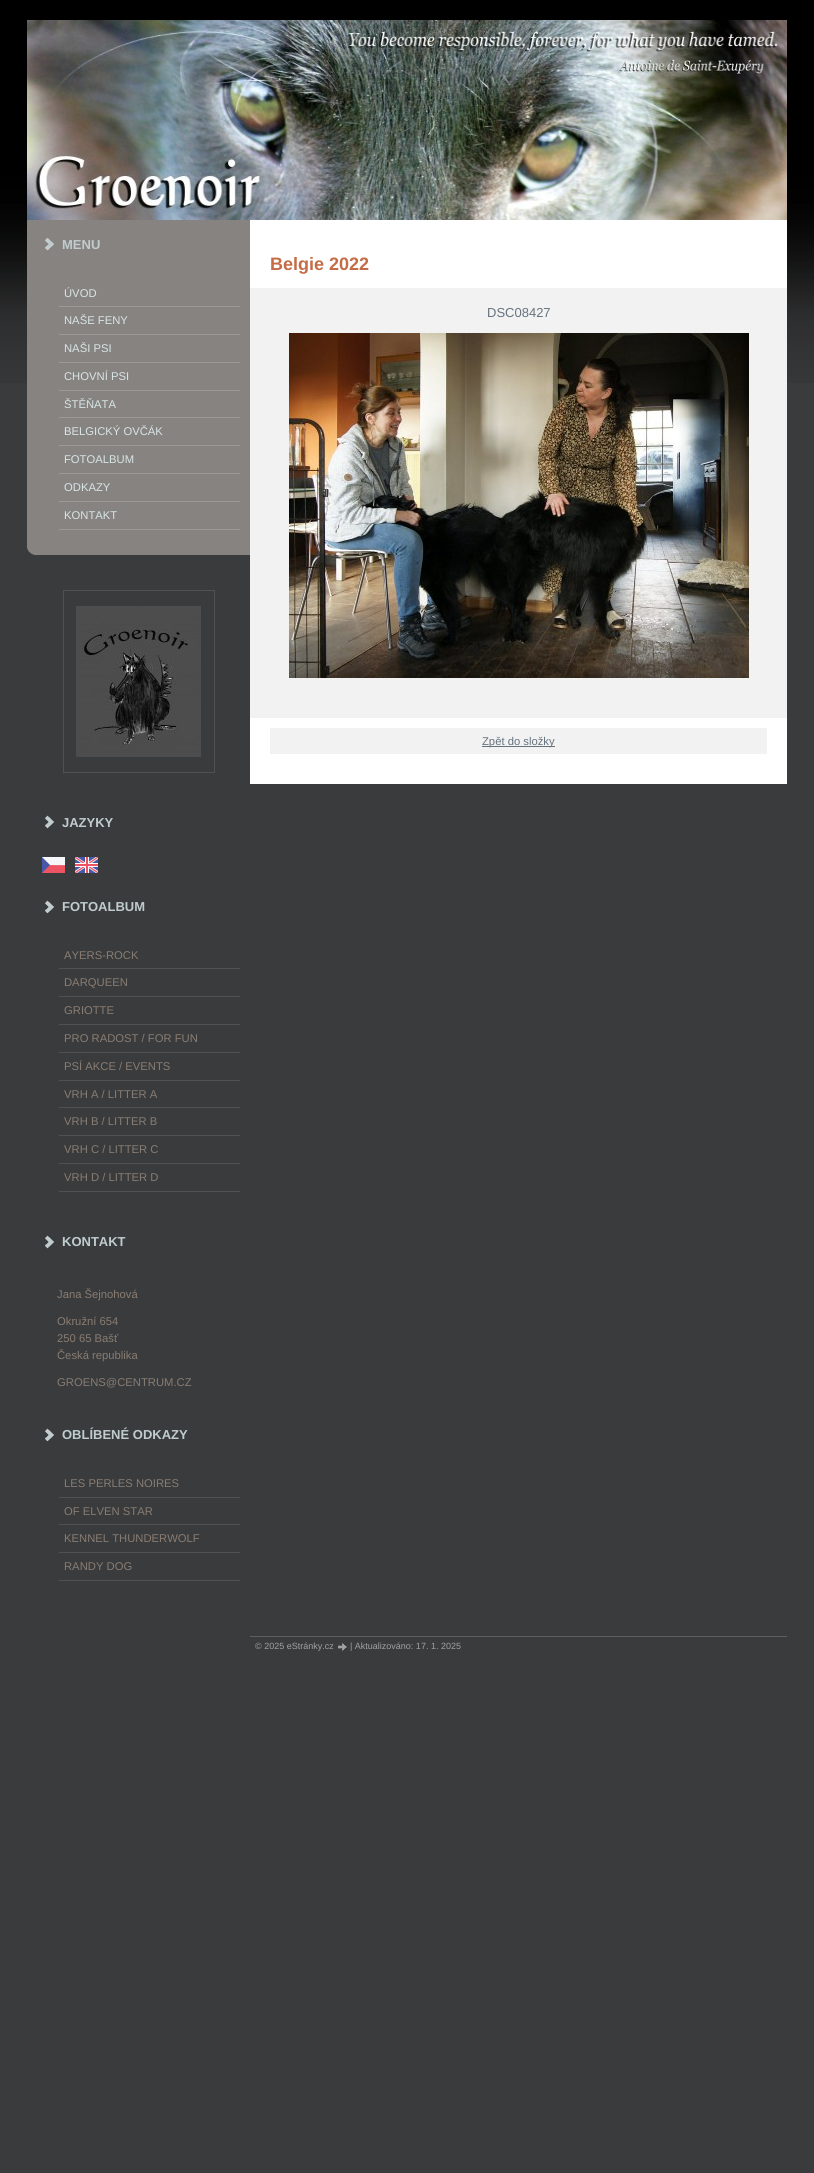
#include <cairo.h>
#include <math.h>
#include <stddef.h>

typedef struct { double x, y; const char *s; } line_t;

static void ink(cairo_t *ctx, unsigned color) {
    cairo_set_source_rgb(ctx, (color >> 16) / 255.0, (color >> 8 & 255) / 255.0, (color & 255) / 255.0);
}

static void paste(cairo_t *ctx, const char *path, double x, double y, double w, double h) {
    cairo_surface_t *image = cairo_image_surface_create_from_png(path);
    cairo_save(ctx);
    cairo_set_source_surface(ctx, image, x, y);
    cairo_rectangle(ctx, x, y, w, h);
    cairo_fill(ctx);
    cairo_restore(ctx);
    cairo_surface_destroy(image);
}

int main(void) {
    cairo_surface_t *surface = cairo_image_surface_create(CAIRO_FORMAT_RGB24, 814, 2173);
    cairo_t *ctx = cairo_create(surface);
    cairo_font_options_t *options = cairo_font_options_create();
    cairo_font_options_set_hint_metrics(options, CAIRO_HINT_METRICS_OFF);
    cairo_font_options_set_hint_style(options, CAIRO_HINT_STYLE_NONE);
    cairo_set_font_options(ctx, options);
    cairo_set_miter_limit(ctx, 4);
    ink(ctx, 0x393B3D);
    cairo_paint(ctx);
    paste(ctx, "media/1.png", 0, 0, 814, 383);
    paste(ctx, "media/2.png", 27, 20, 760, 200);
    ink(ctx, 0x878381);
    cairo_rectangle(ctx, 27, 220, 223, 335);
    cairo_fill(ctx);
    paste(ctx, "media/3.png", 45, 238, 9, 13);
    cairo_select_font_face(ctx, "Liberation Sans", CAIRO_FONT_SLANT_NORMAL, CAIRO_FONT_WEIGHT_BOLD);
    cairo_set_font_size(ctx, 13);
    ink(ctx, 0xC0CCCE);
    cairo_move_to(ctx, 62, 249);
    cairo_show_text(ctx, "MENU");
    paste(ctx, "media/4.png", 27, 548, 8, 7);
    ink(ctx, 0x9B9998);
    cairo_rectangle(ctx, 59, 306, 181, 1);
    cairo_fill(ctx);
    cairo_select_font_face(ctx, "Liberation Sans", CAIRO_FONT_SLANT_NORMAL, CAIRO_FONT_WEIGHT_NORMAL);
    cairo_set_font_size(ctx, 11.25);
    ink(ctx, 0xD7E5E7);
    cairo_move_to(ctx, 64, 297);
    cairo_show_text(ctx, "ÚVOD");
    ink(ctx, 0x9B9998);
    cairo_rectangle(ctx, 59, 334, 181, 1);
    cairo_fill(ctx);
    ink(ctx, 0xD7E5E7);
    cairo_move_to(ctx, 64, 324);
    cairo_show_text(ctx, "NAŠE FENY");
    ink(ctx, 0x9B9998);
    cairo_rectangle(ctx, 59, 362, 181, 1);
    cairo_fill(ctx);
    ink(ctx, 0xD7E5E7);
    cairo_move_to(ctx, 64, 352);
    cairo_show_text(ctx, "NAŠI PSI");
    ink(ctx, 0x9B9998);
    cairo_rectangle(ctx, 59, 390, 181, 1);
    cairo_fill(ctx);
    ink(ctx, 0xD7E5E7);
    cairo_move_to(ctx, 64, 380);
    cairo_show_text(ctx, "CHOVNÍ PSI");
    ink(ctx, 0x9B9998);
    cairo_rectangle(ctx, 59, 417, 181, 1);
    cairo_fill(ctx);
    ink(ctx, 0xD7E5E7);
    cairo_move_to(ctx, 64, 408);
    cairo_show_text(ctx, "ŠTĚŇATA");
    ink(ctx, 0x9B9998);
    cairo_rectangle(ctx, 59, 445, 181, 1);
    cairo_fill(ctx);
    ink(ctx, 0xD7E5E7);
    cairo_move_to(ctx, 64, 435);
    cairo_show_text(ctx, "BELGICKÝ OVČÁK");
    ink(ctx, 0x9B9998);
    cairo_rectangle(ctx, 59, 473, 181, 1);
    cairo_fill(ctx);
    ink(ctx, 0xD7E5E7);
    cairo_move_to(ctx, 64, 463);
    cairo_show_text(ctx, "FOTOALBUM");
    ink(ctx, 0x9B9998);
    cairo_rectangle(ctx, 59, 501, 181, 1);
    cairo_fill(ctx);
    ink(ctx, 0xD7E5E7);
    cairo_move_to(ctx, 64, 491);
    cairo_show_text(ctx, "ODKAZY");
    ink(ctx, 0x9B9998);
    cairo_rectangle(ctx, 59, 529, 181, 1);
    cairo_fill(ctx);
    ink(ctx, 0xD7E5E7);
    cairo_move_to(ctx, 64, 519);
    cairo_show_text(ctx, "KONTAKT");
    cairo_rectangle(ctx, 63.5, 590.5, 151, 182);
    ink(ctx, 0x4F5153);
    cairo_set_line_width(ctx, 1);
    cairo_stroke(ctx);
    paste(ctx, "media/5.png", 76, 606, 125, 151);
    paste(ctx, "media/6.png", 45, 815, 9, 14);
    cairo_select_font_face(ctx, "Liberation Sans", CAIRO_FONT_SLANT_NORMAL, CAIRO_FONT_WEIGHT_BOLD);
    cairo_set_font_size(ctx, 13);
    ink(ctx, 0xC0CCCE);
    cairo_move_to(ctx, 62, 827);
    cairo_show_text(ctx, "JAZYKY");
    paste(ctx, "media/7.png", 42, 857, 23, 16);
    paste(ctx, "media/8.png", 75, 857, 23, 16);
    paste(ctx, "media/6.png", 45, 900, 9, 14);
    cairo_move_to(ctx, 62, 911);
    cairo_show_text(ctx, "FOTOALBUM");
    ink(ctx, 0x4F5153);
    cairo_rectangle(ctx, 59, 968, 181, 1);
    cairo_fill(ctx);
    cairo_select_font_face(ctx, "Liberation Sans", CAIRO_FONT_SLANT_NORMAL, CAIRO_FONT_WEIGHT_NORMAL);
    cairo_set_font_size(ctx, 11.25);
    ink(ctx, 0x897C72);
    cairo_move_to(ctx, 64, 959);
    cairo_show_text(ctx, "AYERS-ROCK");
    ink(ctx, 0x4F5153);
    cairo_rectangle(ctx, 59, 996, 181, 1);
    cairo_fill(ctx);
    ink(ctx, 0x897C72);
    cairo_move_to(ctx, 64, 986);
    cairo_show_text(ctx, "DARQUEEN");
    ink(ctx, 0x4F5153);
    cairo_rectangle(ctx, 59, 1024, 181, 1);
    cairo_fill(ctx);
    ink(ctx, 0x897C72);
    cairo_move_to(ctx, 64, 1014);
    cairo_show_text(ctx, "GRIOTTE");
    ink(ctx, 0x4F5153);
    cairo_rectangle(ctx, 59, 1052, 181, 1);
    cairo_fill(ctx);
    ink(ctx, 0x897C72);
    cairo_move_to(ctx, 64, 1042);
    cairo_show_text(ctx, "PRO RADOST / FOR FUN");
    ink(ctx, 0x4F5153);
    cairo_rectangle(ctx, 59, 1080, 181, 1);
    cairo_fill(ctx);
    ink(ctx, 0x897C72);
    cairo_move_to(ctx, 64, 1070);
    cairo_show_text(ctx, "PSÍ AKCE / EVENTS");
    ink(ctx, 0x4F5153);
    cairo_rectangle(ctx, 59, 1107, 181, 1);
    cairo_fill(ctx);
    ink(ctx, 0x897C72);
    cairo_move_to(ctx, 64, 1098);
    cairo_show_text(ctx, "VRH A / LITTER A");
    ink(ctx, 0x4F5153);
    cairo_rectangle(ctx, 59, 1135, 181, 1);
    cairo_fill(ctx);
    ink(ctx, 0x897C72);
    cairo_move_to(ctx, 64, 1125);
    cairo_show_text(ctx, "VRH B / LITTER B");
    ink(ctx, 0x4F5153);
    cairo_rectangle(ctx, 59, 1163, 181, 1);
    cairo_fill(ctx);
    ink(ctx, 0x897C72);
    cairo_move_to(ctx, 64, 1153);
    cairo_show_text(ctx, "VRH C / LITTER C");
    ink(ctx, 0x4F5153);
    cairo_rectangle(ctx, 59, 1191, 181, 1);
    cairo_fill(ctx);
    ink(ctx, 0x897C72);
    cairo_move_to(ctx, 64, 1181);
    cairo_show_text(ctx, "VRH D / LITTER D");
    paste(ctx, "media/6.png", 45, 1235, 9, 14);
    cairo_select_font_face(ctx, "Liberation Sans", CAIRO_FONT_SLANT_NORMAL, CAIRO_FONT_WEIGHT_BOLD);
    cairo_set_font_size(ctx, 13);
    ink(ctx, 0xC0CCCE);
    cairo_move_to(ctx, 62, 1246);
    cairo_show_text(ctx, "KONTAKT");
    cairo_select_font_face(ctx, "Liberation Sans", CAIRO_FONT_SLANT_NORMAL, CAIRO_FONT_WEIGHT_NORMAL);
    cairo_set_font_size(ctx, 11.25);
    ink(ctx, 0x897C72);
    {
        static const line_t items[] = {
            {57, 1298, "Jana Šejnohová"},
            {57, 1325, "Okružní 654"},
            {57, 1342, "250 65 Bašť"},
            {57, 1359, "Česká republika"},
            {57, 1386, "GROENS@CENTRUM.CZ"},
        };
        for (size_t i = 0; i < sizeof items / sizeof *items; i++) {
            cairo_move_to(ctx, items[i].x, items[i].y);
            cairo_show_text(ctx, items[i].s);
        }
    }
    paste(ctx, "media/6.png", 45, 1428, 9, 14);
    cairo_select_font_face(ctx, "Liberation Sans", CAIRO_FONT_SLANT_NORMAL, CAIRO_FONT_WEIGHT_BOLD);
    cairo_set_font_size(ctx, 13);
    ink(ctx, 0xC0CCCE);
    cairo_move_to(ctx, 62, 1439);
    cairo_show_text(ctx, "OBLÍBENÉ ODKAZY");
    ink(ctx, 0x4F5153);
    cairo_rectangle(ctx, 59, 1497, 181, 1);
    cairo_fill(ctx);
    cairo_select_font_face(ctx, "Liberation Sans", CAIRO_FONT_SLANT_NORMAL, CAIRO_FONT_WEIGHT_NORMAL);
    cairo_set_font_size(ctx, 11.25);
    ink(ctx, 0x897C72);
    cairo_move_to(ctx, 64, 1487);
    cairo_show_text(ctx, "LES PERLES NOIRES");
    ink(ctx, 0x4F5153);
    cairo_rectangle(ctx, 59, 1524, 181, 1);
    cairo_fill(ctx);
    ink(ctx, 0x897C72);
    cairo_move_to(ctx, 64, 1515);
    cairo_show_text(ctx, "OF ELVEN STAR");
    ink(ctx, 0x4F5153);
    cairo_rectangle(ctx, 59, 1552, 181, 1);
    cairo_fill(ctx);
    ink(ctx, 0x897C72);
    cairo_move_to(ctx, 64, 1542);
    cairo_show_text(ctx, "KENNEL THUNDERWOLF");
    ink(ctx, 0x4F5153);
    cairo_rectangle(ctx, 59, 1580, 181, 1);
    cairo_fill(ctx);
    ink(ctx, 0x897C72);
    cairo_move_to(ctx, 64, 1570);
    cairo_show_text(ctx, "RANDY DOG");
    ink(ctx, 0xFFFFFF);
    cairo_rectangle(ctx, 250, 220, 537, 564);
    cairo_fill(ctx);
    cairo_select_font_face(ctx, "Liberation Sans", CAIRO_FONT_SLANT_NORMAL, CAIRO_FONT_WEIGHT_BOLD);
    cairo_set_font_size(ctx, 18);
    ink(ctx, 0xC46C45);
    cairo_move_to(ctx, 270, 270);
    cairo_show_text(ctx, "Belgie 2022");
    ink(ctx, 0xF2F2F2);
    cairo_rectangle(ctx, 250, 288, 537, 430);
    cairo_fill(ctx);
    cairo_select_font_face(ctx, "Liberation Sans", CAIRO_FONT_SLANT_NORMAL, CAIRO_FONT_WEIGHT_NORMAL);
    cairo_set_font_size(ctx, 13);
    ink(ctx, 0x65737F);
    cairo_move_to(ctx, 487, 317);
    cairo_show_text(ctx, "DSC08427");
    paste(ctx, "media/9.png", 289, 333, 460, 345);
    ink(ctx, 0xF2F2F2);
    cairo_rectangle(ctx, 270, 728, 497, 26);
    cairo_fill(ctx);
    ink(ctx, 0x65737F);
    cairo_rectangle(ctx, 482, 746, 73, 1);
    cairo_fill(ctx);
    cairo_set_font_size(ctx, 11.25);
    cairo_move_to(ctx, 482, 745);
    cairo_show_text(ctx, "Zpět do složky");
    ink(ctx, 0x5F5F5F);
    cairo_rectangle(ctx, 250, 1636, 537, 1);
    cairo_fill(ctx);
    cairo_set_font_size(ctx, 9);
    ink(ctx, 0xA1A1A1);
    cairo_move_to(ctx, 255, 1649);
    cairo_show_text(ctx, "© 2025 eStránky.cz");
    paste(ctx, "media/10.png", 338, 1643, 9, 8);
    cairo_move_to(ctx, 350, 1649);
    cairo_show_text(ctx, "| Aktualizováno: 17. 1. 2025");
    cairo_surface_write_to_png(surface, "image.png");
    cairo_font_options_destroy(options);
    cairo_destroy(ctx);
    cairo_surface_destroy(surface);
    return 0;
}
